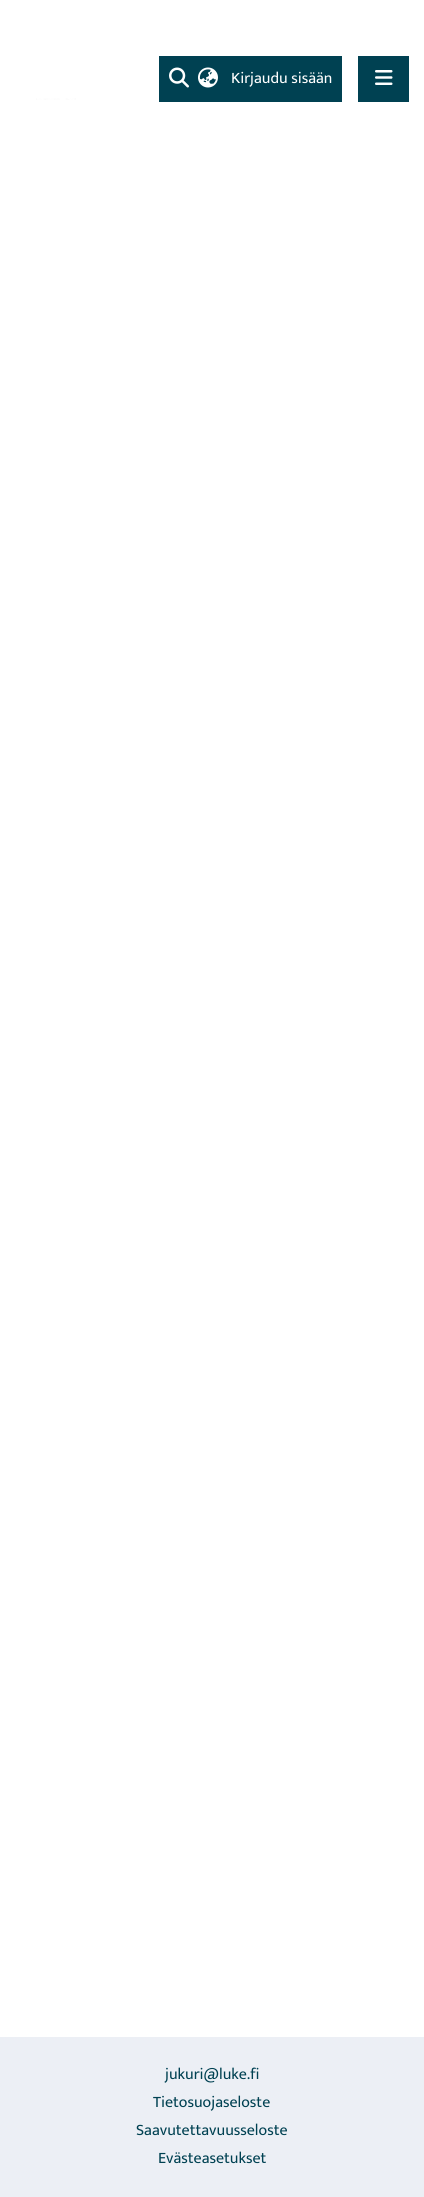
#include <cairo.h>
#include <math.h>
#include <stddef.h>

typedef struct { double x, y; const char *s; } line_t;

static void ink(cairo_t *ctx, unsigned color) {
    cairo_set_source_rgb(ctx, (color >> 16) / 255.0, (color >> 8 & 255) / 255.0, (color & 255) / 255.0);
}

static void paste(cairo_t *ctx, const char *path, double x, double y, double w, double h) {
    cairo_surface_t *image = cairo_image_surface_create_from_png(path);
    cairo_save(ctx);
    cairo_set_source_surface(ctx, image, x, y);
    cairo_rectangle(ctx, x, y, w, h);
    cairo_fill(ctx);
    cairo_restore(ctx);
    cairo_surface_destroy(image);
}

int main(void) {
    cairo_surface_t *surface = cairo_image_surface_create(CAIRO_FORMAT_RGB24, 424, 2197);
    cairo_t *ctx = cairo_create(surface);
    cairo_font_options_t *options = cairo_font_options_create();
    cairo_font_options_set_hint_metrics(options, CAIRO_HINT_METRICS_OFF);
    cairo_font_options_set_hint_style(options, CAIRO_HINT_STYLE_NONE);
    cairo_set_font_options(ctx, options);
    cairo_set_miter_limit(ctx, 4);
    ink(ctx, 0xFFFFFF);
    cairo_paint(ctx);
    ink(ctx, 0x004152);
    cairo_rectangle(ctx, 159, 56, 183, 46);
    cairo_fill(ctx);
    paste(ctx, "media/1.png", 169, 67, 20, 21);
    paste(ctx, "media/2.png", 198, 67, 20, 21);
    cairo_select_font_face(ctx, "Mukta", CAIRO_FONT_SLANT_NORMAL, CAIRO_FONT_WEIGHT_NORMAL);
    cairo_set_font_size(ctx, 16);
    ink(ctx, 0xFFFFFF);
    cairo_move_to(ctx, 231, 83);
    cairo_show_text(ctx, "Kirjaudu sisään");
    ink(ctx, 0x004152);
    cairo_rectangle(ctx, 358, 56, 51, 46);
    cairo_fill(ctx);
    paste(ctx, "media/3.png", 375, 70, 18, 15);
    paste(ctx, "media/4.png", 36, 98, 40, 2);
    ink(ctx, 0xECEFF5);
    cairo_rectangle(ctx, 0, 2037, 424, 160);
    cairo_fill(ctx);
    ink(ctx, 0x004152);
    {
        static const line_t items[] = {
            {165, 2079, "jukuri@luke.fi"},
            {153, 2107, "Tietosuojaseloste"},
            {136, 2135, "Saavutettavuusseloste"},
            {158, 2163, "Evästeasetukset"},
        };
        for (size_t i = 0; i < sizeof items / sizeof *items; i++) {
            cairo_move_to(ctx, items[i].x, items[i].y);
            cairo_show_text(ctx, items[i].s);
        }
    }
    cairo_surface_write_to_png(surface, "image.png");
    cairo_font_options_destroy(options);
    cairo_destroy(ctx);
    cairo_surface_destroy(surface);
    return 0;
}
